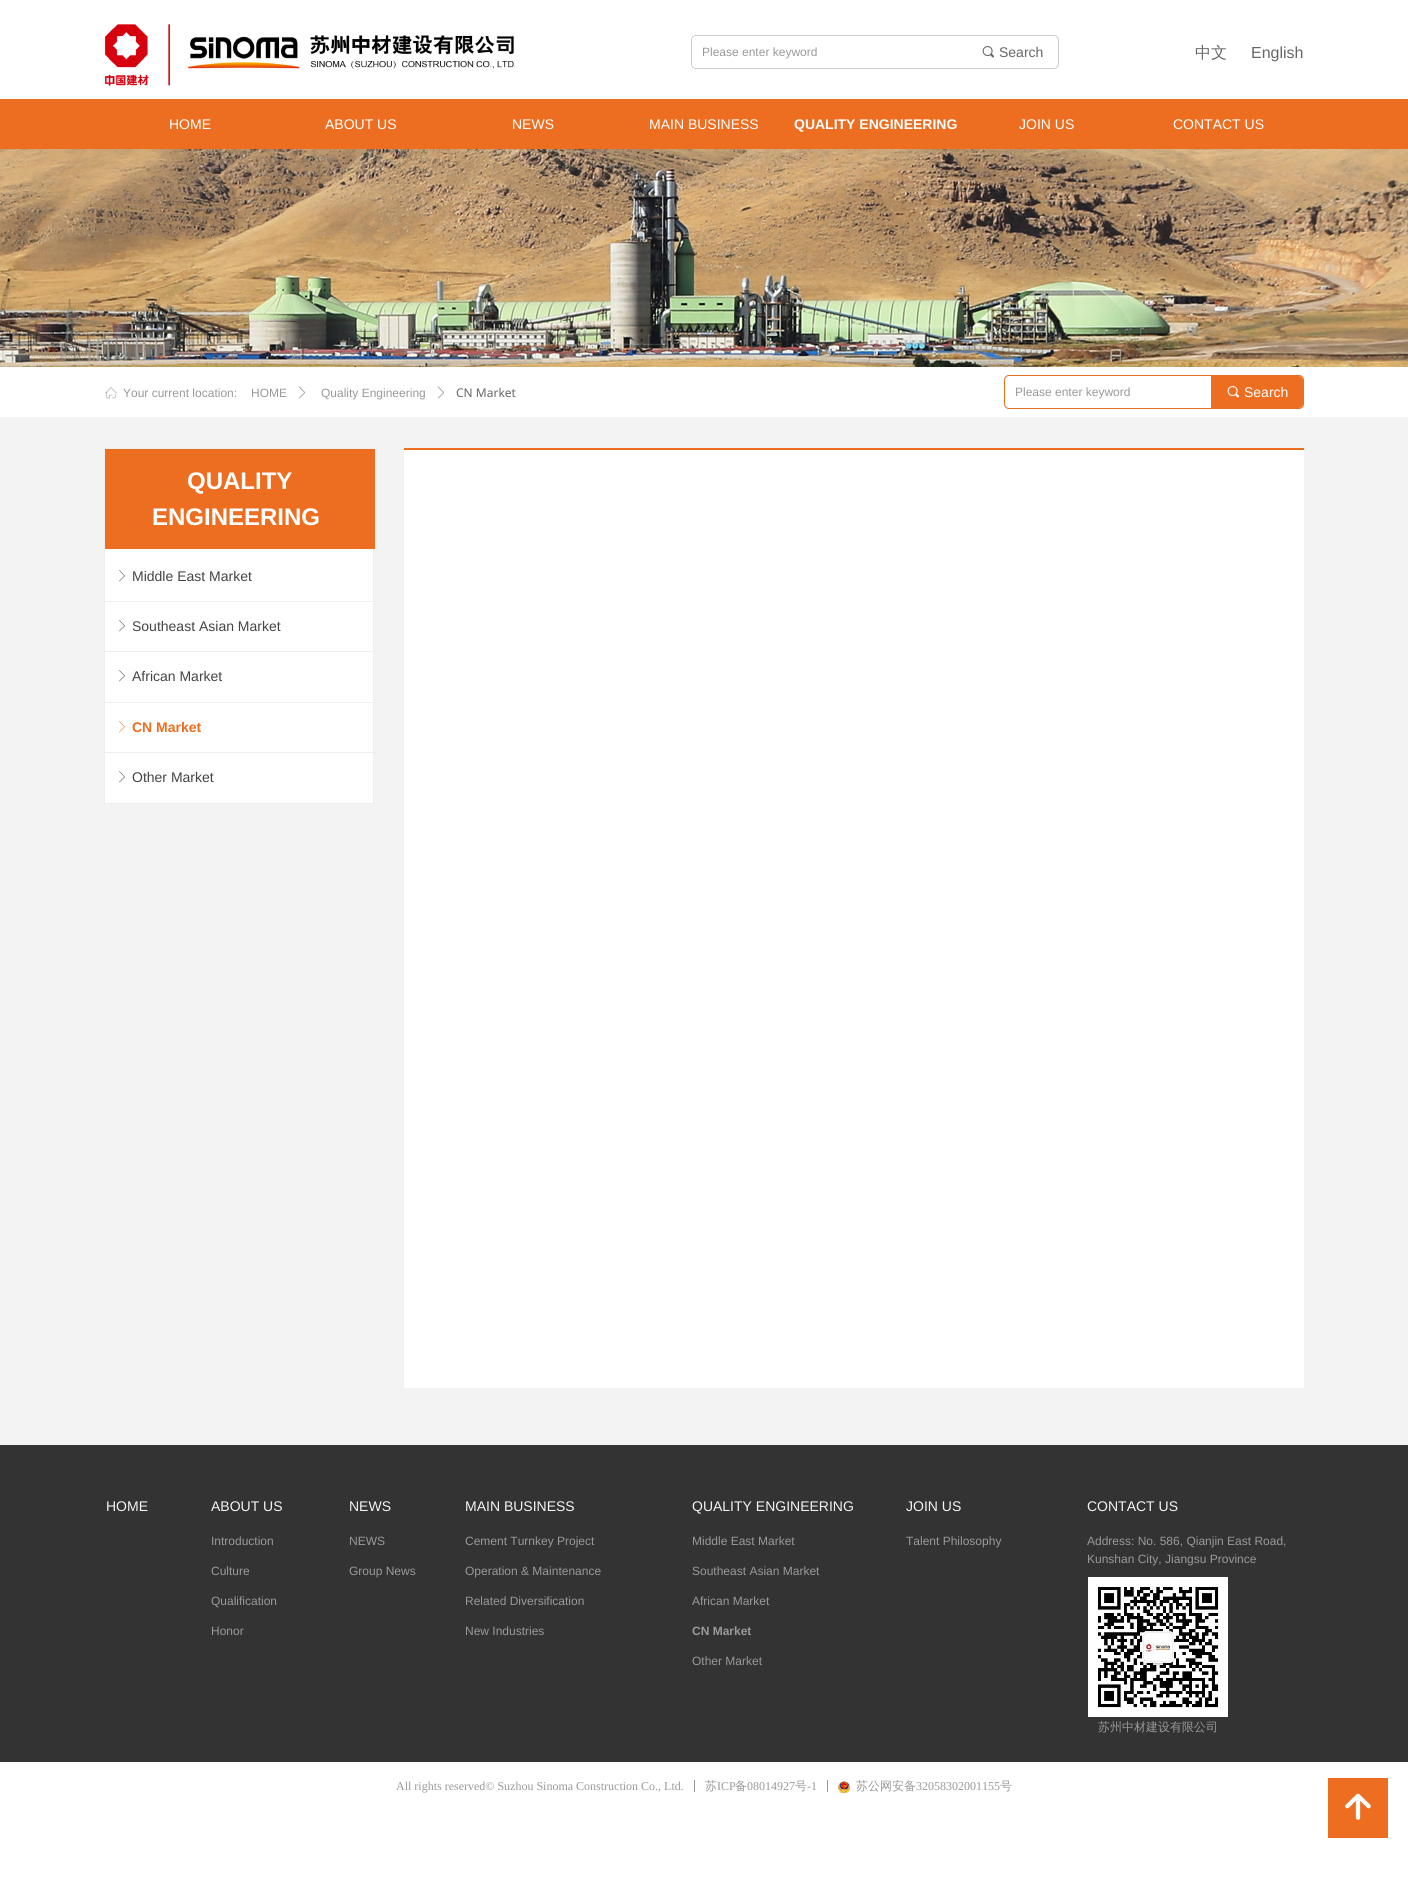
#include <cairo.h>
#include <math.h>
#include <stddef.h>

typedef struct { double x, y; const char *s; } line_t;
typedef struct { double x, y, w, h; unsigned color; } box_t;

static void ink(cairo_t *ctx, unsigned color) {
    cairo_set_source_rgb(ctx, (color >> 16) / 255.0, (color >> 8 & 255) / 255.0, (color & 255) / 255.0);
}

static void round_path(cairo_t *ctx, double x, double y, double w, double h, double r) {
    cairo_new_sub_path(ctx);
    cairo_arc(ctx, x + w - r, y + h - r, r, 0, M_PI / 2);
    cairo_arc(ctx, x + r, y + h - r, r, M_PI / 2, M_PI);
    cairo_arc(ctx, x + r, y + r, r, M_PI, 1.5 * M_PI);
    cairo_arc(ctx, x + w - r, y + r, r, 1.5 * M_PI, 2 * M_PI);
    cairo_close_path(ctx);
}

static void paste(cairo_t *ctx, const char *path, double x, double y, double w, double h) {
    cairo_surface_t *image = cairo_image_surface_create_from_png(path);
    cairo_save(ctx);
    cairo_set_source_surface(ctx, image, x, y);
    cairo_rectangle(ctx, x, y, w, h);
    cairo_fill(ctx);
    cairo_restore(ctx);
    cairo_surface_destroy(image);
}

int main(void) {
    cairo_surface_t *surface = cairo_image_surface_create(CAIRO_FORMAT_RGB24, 1408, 1888);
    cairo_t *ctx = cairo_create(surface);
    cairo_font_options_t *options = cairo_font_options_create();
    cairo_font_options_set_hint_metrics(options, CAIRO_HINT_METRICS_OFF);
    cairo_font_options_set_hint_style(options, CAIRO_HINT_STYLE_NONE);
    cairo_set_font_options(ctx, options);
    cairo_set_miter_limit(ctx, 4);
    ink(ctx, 0xFFFFFF);
    cairo_paint(ctx);
    paste(ctx, "media/1.png", 104, 24, 411, 62);
    round_path(ctx, 691.5, 35.5, 367, 33, 4.5);
    ink(ctx, 0xCCCCCC);
    cairo_set_line_width(ctx, 1);
    cairo_stroke(ctx);
    ink(ctx, 0xFFFFFF);
    cairo_new_path(ctx);
    cairo_move_to(ctx, 696, 36);
    cairo_line_to(ctx, 966, 36);
    cairo_line_to(ctx, 966, 68);
    cairo_line_to(ctx, 696, 68);
    cairo_curve_to(ctx, 694, 68, 692, 66, 692, 64);
    cairo_line_to(ctx, 692, 40);
    cairo_curve_to(ctx, 692, 38, 694, 36, 696, 36);
    cairo_close_path(ctx);
    cairo_fill(ctx);
    cairo_select_font_face(ctx, "Liberation Sans", CAIRO_FONT_SLANT_NORMAL, CAIRO_FONT_WEIGHT_NORMAL);
    cairo_set_font_size(ctx, 12);
    ink(ctx, 0x999999);
    cairo_move_to(ctx, 702, 56);
    cairo_show_text(ctx, "Please enter keyword");
    paste(ctx, "media/2.png", 982, 46, 12, 12);
    cairo_set_font_size(ctx, 14);
    ink(ctx, 0x666666);
    cairo_move_to(ctx, 999, 57);
    cairo_show_text(ctx, "Search");
    cairo_select_font_face(ctx, "WenQuanYi Zen Hei Medium", CAIRO_FONT_SLANT_NORMAL, CAIRO_FONT_WEIGHT_NORMAL);
    cairo_set_font_size(ctx, 16);
    cairo_move_to(ctx, 1195, 58);
    cairo_show_text(ctx, "中文");
    cairo_select_font_face(ctx, "Liberation Sans", CAIRO_FONT_SLANT_NORMAL, CAIRO_FONT_WEIGHT_NORMAL);
    cairo_move_to(ctx, 1251, 58);
    cairo_show_text(ctx, "English");
    ink(ctx, 0xED6E20);
    cairo_rectangle(ctx, 0, 99, 1408, 50);
    cairo_fill(ctx);
    cairo_set_font_size(ctx, 14);
    ink(ctx, 0xFFFFFF);
    {
        static const line_t items[] = {
            {169, 129, "HOME"},
            {325, 129, "ABOUT US"},
            {512, 129, "NEWS"},
            {649, 129, "MAIN BUSINESS"},
        };
        for (size_t i = 0; i < sizeof items / sizeof *items; i++) {
            cairo_move_to(ctx, items[i].x, items[i].y);
            cairo_show_text(ctx, items[i].s);
        }
    }
    cairo_select_font_face(ctx, "Liberation Sans", CAIRO_FONT_SLANT_NORMAL, CAIRO_FONT_WEIGHT_BOLD);
    cairo_move_to(ctx, 794, 129);
    cairo_show_text(ctx, "QUALITY ENGINEERING");
    cairo_select_font_face(ctx, "Liberation Sans", CAIRO_FONT_SLANT_NORMAL, CAIRO_FONT_WEIGHT_NORMAL);
    cairo_move_to(ctx, 1019, 129);
    cairo_show_text(ctx, "JOIN US");
    cairo_move_to(ctx, 1173, 129);
    cairo_show_text(ctx, "CONTACT US");
    ink(ctx, 0xF3F3F3);
    cairo_rectangle(ctx, 0, 417, 1408, 1028);
    cairo_fill(ctx);
    paste(ctx, "media/3.png", 0, 149, 1408, 218);
    paste(ctx, "media/4.png", 105, 387, 12, 12);
    cairo_set_font_size(ctx, 12);
    ink(ctx, 0x999999);
    cairo_move_to(ctx, 123, 397);
    cairo_show_text(ctx, "Your current location:");
    cairo_move_to(ctx, 251, 397);
    cairo_show_text(ctx, "HOME");
    paste(ctx, "media/5.png", 298, 386, 8, 13);
    cairo_move_to(ctx, 321, 397);
    cairo_show_text(ctx, "Quality Engineering");
    paste(ctx, "media/5.png", 437, 386, 8, 13);
    cairo_select_font_face(ctx, "Noto Sans", CAIRO_FONT_SLANT_NORMAL, CAIRO_FONT_WEIGHT_NORMAL);
    ink(ctx, 0x666666);
    cairo_move_to(ctx, 456, 397);
    cairo_show_text(ctx, "CN Market");
    round_path(ctx, 1004.5, 375.5, 299, 33, 4.5);
    ink(ctx, 0xED6E20);
    cairo_stroke(ctx);
    cairo_select_font_face(ctx, "Liberation Sans", CAIRO_FONT_SLANT_NORMAL, CAIRO_FONT_WEIGHT_NORMAL);
    ink(ctx, 0x999999);
    cairo_move_to(ctx, 1015, 396);
    cairo_show_text(ctx, "Please enter keyword");
    ink(ctx, 0xED6E20);
    cairo_new_path(ctx);
    cairo_move_to(ctx, 1211, 376);
    cairo_line_to(ctx, 1299, 376);
    cairo_curve_to(ctx, 1301, 376, 1303, 378, 1303, 380);
    cairo_line_to(ctx, 1303, 404);
    cairo_curve_to(ctx, 1303, 406, 1301, 408, 1299, 408);
    cairo_line_to(ctx, 1211, 408);
    cairo_close_path(ctx);
    cairo_fill(ctx);
    paste(ctx, "media/6.png", 1227, 386, 12, 12);
    cairo_set_font_size(ctx, 14);
    ink(ctx, 0xFFFFFF);
    cairo_move_to(ctx, 1244, 397);
    cairo_show_text(ctx, "Search");
    cairo_rectangle(ctx, 105, 549, 268, 254);
    cairo_fill(ctx);
    cairo_rectangle(ctx, 104.5, 448.5, 269, 355);
    ink(ctx, 0xEEEEEE);
    cairo_stroke(ctx);
    ink(ctx, 0xED6E20);
    cairo_rectangle(ctx, 105, 449, 270, 100);
    cairo_fill(ctx);
    cairo_select_font_face(ctx, "Liberation Sans", CAIRO_FONT_SLANT_NORMAL, CAIRO_FONT_WEIGHT_BOLD);
    cairo_set_font_size(ctx, 24);
    ink(ctx, 0xFFFFFF);
    cairo_move_to(ctx, 187, 489);
    cairo_show_text(ctx, "QUALITY");
    cairo_move_to(ctx, 152, 525);
    cairo_show_text(ctx, "ENGINEERING");
    paste(ctx, "media/7.png", 119, 570, 6, 12);
    cairo_select_font_face(ctx, "Liberation Sans", CAIRO_FONT_SLANT_NORMAL, CAIRO_FONT_WEIGHT_NORMAL);
    cairo_set_font_size(ctx, 14);
    ink(ctx, 0x444444);
    cairo_move_to(ctx, 132, 581);
    cairo_show_text(ctx, "Middle East Market");
    ink(ctx, 0xEEEEEE);
    cairo_rectangle(ctx, 105, 601, 270, 1);
    cairo_fill(ctx);
    paste(ctx, "media/7.png", 119, 620, 6, 12);
    ink(ctx, 0x444444);
    cairo_move_to(ctx, 132, 631);
    cairo_show_text(ctx, "Southeast Asian Market");
    ink(ctx, 0xEEEEEE);
    cairo_rectangle(ctx, 105, 651, 270, 1);
    cairo_fill(ctx);
    paste(ctx, "media/7.png", 119, 670, 6, 12);
    ink(ctx, 0x444444);
    cairo_move_to(ctx, 132, 681);
    cairo_show_text(ctx, "African Market");
    ink(ctx, 0xEEEEEE);
    cairo_rectangle(ctx, 105, 702, 270, 1);
    cairo_fill(ctx);
    paste(ctx, "media/8.png", 119, 721, 6, 12);
    cairo_select_font_face(ctx, "Liberation Sans", CAIRO_FONT_SLANT_NORMAL, CAIRO_FONT_WEIGHT_BOLD);
    ink(ctx, 0xED6E20);
    cairo_move_to(ctx, 132, 732);
    cairo_show_text(ctx, "CN Market");
    ink(ctx, 0xEEEEEE);
    cairo_rectangle(ctx, 105, 752, 270, 1);
    cairo_fill(ctx);
    paste(ctx, "media/7.png", 119, 771, 6, 12);
    cairo_select_font_face(ctx, "Liberation Sans", CAIRO_FONT_SLANT_NORMAL, CAIRO_FONT_WEIGHT_NORMAL);
    ink(ctx, 0x444444);
    cairo_move_to(ctx, 132, 782);
    cairo_show_text(ctx, "Other Market");
    {
        static const box_t items[] = {
            {404, 450, 900, 938, 0xFFFFFF},
            {404, 448, 900, 2, 0xED6E20},
            {0, 1445, 1408, 317, 0x333333},
        };
        for (size_t i = 0; i < sizeof items / sizeof *items; i++) {
            ink(ctx, items[i].color);
            cairo_rectangle(ctx, items[i].x, items[i].y, items[i].w, items[i].h);
            cairo_fill(ctx);
        }
    }
    ink(ctx, 0xF3F3F3);
    {
        static const line_t items[] = {
            {106, 1511, "HOME"},
            {211, 1511, "ABOUT US"},
            {349, 1511, "NEWS"},
            {465, 1511, "MAIN BUSINESS"},
            {692, 1511, "QUALITY ENGINEERING"},
            {906, 1511, "JOIN US"},
            {1087, 1511, "CONTACT US"},
        };
        for (size_t i = 0; i < sizeof items / sizeof *items; i++) {
            cairo_move_to(ctx, items[i].x, items[i].y);
            cairo_show_text(ctx, items[i].s);
        }
    }
    cairo_set_font_size(ctx, 12);
    ink(ctx, 0x999999);
    {
        static const line_t items[] = {
            {211, 1545, "Introduction"},
            {211, 1575, "Culture"},
            {211, 1605, "Qualification"},
            {211, 1635, "Honor"},
            {349, 1545, "NEWS"},
            {349, 1575, "Group News"},
            {465, 1545, "Cement Turnkey Project"},
            {465, 1575, "Operation & Maintenance"},
            {465, 1605, "Related Diversification"},
            {465, 1635, "New Industries"},
            {692, 1545, "Middle East Market"},
            {692, 1575, "Southeast Asian Market"},
            {692, 1605, "African Market"},
        };
        for (size_t i = 0; i < sizeof items / sizeof *items; i++) {
            cairo_move_to(ctx, items[i].x, items[i].y);
            cairo_show_text(ctx, items[i].s);
        }
    }
    cairo_select_font_face(ctx, "Liberation Sans", CAIRO_FONT_SLANT_NORMAL, CAIRO_FONT_WEIGHT_BOLD);
    cairo_move_to(ctx, 692, 1635);
    cairo_show_text(ctx, "CN Market");
    cairo_select_font_face(ctx, "Liberation Sans", CAIRO_FONT_SLANT_NORMAL, CAIRO_FONT_WEIGHT_NORMAL);
    {
        static const line_t items[] = {
            {692, 1665, "Other Market"},
            {906, 1545, "Talent Philosophy"},
            {1087, 1545, "Address: No. 586, Qianjin East Road,"},
            {1087, 1563, "Kunshan City, Jiangsu Province"},
        };
        for (size_t i = 0; i < sizeof items / sizeof *items; i++) {
            cairo_move_to(ctx, items[i].x, items[i].y);
            cairo_show_text(ctx, items[i].s);
        }
    }
    paste(ctx, "media/9.png", 1088, 1577, 140, 140);
    cairo_select_font_face(ctx, "WenQuanYi Zen Hei Medium", CAIRO_FONT_SLANT_NORMAL, CAIRO_FONT_WEIGHT_NORMAL);
    cairo_move_to(ctx, 1098, 1731);
    cairo_show_text(ctx, "苏州中材建设有限公司");
    cairo_select_font_face(ctx, "Liberation Serif", CAIRO_FONT_SLANT_NORMAL, CAIRO_FONT_WEIGHT_NORMAL);
    cairo_move_to(ctx, 396, 1790);
    cairo_show_text(ctx, "All rights reserved© Suzhou Sinoma Construction Co., Ltd.");
    ink(ctx, 0x989898);
    cairo_rectangle(ctx, 694, 1780, 1, 12);
    cairo_fill(ctx);
    cairo_select_font_face(ctx, "WenQuanYi Zen Hei Medium", CAIRO_FONT_SLANT_NORMAL, CAIRO_FONT_WEIGHT_NORMAL);
    ink(ctx, 0x999999);
    cairo_move_to(ctx, 705, 1790);
    cairo_show_text(ctx, "苏");
    cairo_select_font_face(ctx, "Liberation Serif", CAIRO_FONT_SLANT_NORMAL, CAIRO_FONT_WEIGHT_NORMAL);
    cairo_move_to(ctx, 717, 1790);
    cairo_show_text(ctx, "ICP");
    cairo_select_font_face(ctx, "WenQuanYi Zen Hei Medium", CAIRO_FONT_SLANT_NORMAL, CAIRO_FONT_WEIGHT_NORMAL);
    cairo_move_to(ctx, 735, 1790);
    cairo_show_text(ctx, "备");
    cairo_select_font_face(ctx, "Liberation Serif", CAIRO_FONT_SLANT_NORMAL, CAIRO_FONT_WEIGHT_NORMAL);
    cairo_move_to(ctx, 747, 1790);
    cairo_show_text(ctx, "08014927");
    cairo_select_font_face(ctx, "WenQuanYi Zen Hei Medium", CAIRO_FONT_SLANT_NORMAL, CAIRO_FONT_WEIGHT_NORMAL);
    cairo_move_to(ctx, 795, 1790);
    cairo_show_text(ctx, "号");
    cairo_select_font_face(ctx, "Liberation Serif", CAIRO_FONT_SLANT_NORMAL, CAIRO_FONT_WEIGHT_NORMAL);
    cairo_move_to(ctx, 807, 1790);
    cairo_show_text(ctx, "-1");
    ink(ctx, 0x989898);
    cairo_rectangle(ctx, 827, 1780, 1, 12);
    cairo_fill(ctx);
    paste(ctx, "media/10.png", 838, 1781, 12, 12);
    cairo_select_font_face(ctx, "WenQuanYi Zen Hei Medium", CAIRO_FONT_SLANT_NORMAL, CAIRO_FONT_WEIGHT_NORMAL);
    ink(ctx, 0x999999);
    cairo_move_to(ctx, 856, 1790);
    cairo_show_text(ctx, "苏公网安备");
    cairo_select_font_face(ctx, "Liberation Serif", CAIRO_FONT_SLANT_NORMAL, CAIRO_FONT_WEIGHT_NORMAL);
    cairo_move_to(ctx, 916, 1790);
    cairo_show_text(ctx, "32058302001155");
    cairo_select_font_face(ctx, "WenQuanYi Zen Hei Medium", CAIRO_FONT_SLANT_NORMAL, CAIRO_FONT_WEIGHT_NORMAL);
    cairo_move_to(ctx, 1000, 1790);
    cairo_show_text(ctx, "号");
    ink(ctx, 0xED6E20);
    cairo_rectangle(ctx, 1328, 1778, 60, 60);
    cairo_fill(ctx);
    paste(ctx, "media/11.png", 1345, 1793, 26, 27);
    cairo_surface_write_to_png(surface, "image.png");
    cairo_font_options_destroy(options);
    cairo_destroy(ctx);
    cairo_surface_destroy(surface);
    return 0;
}
